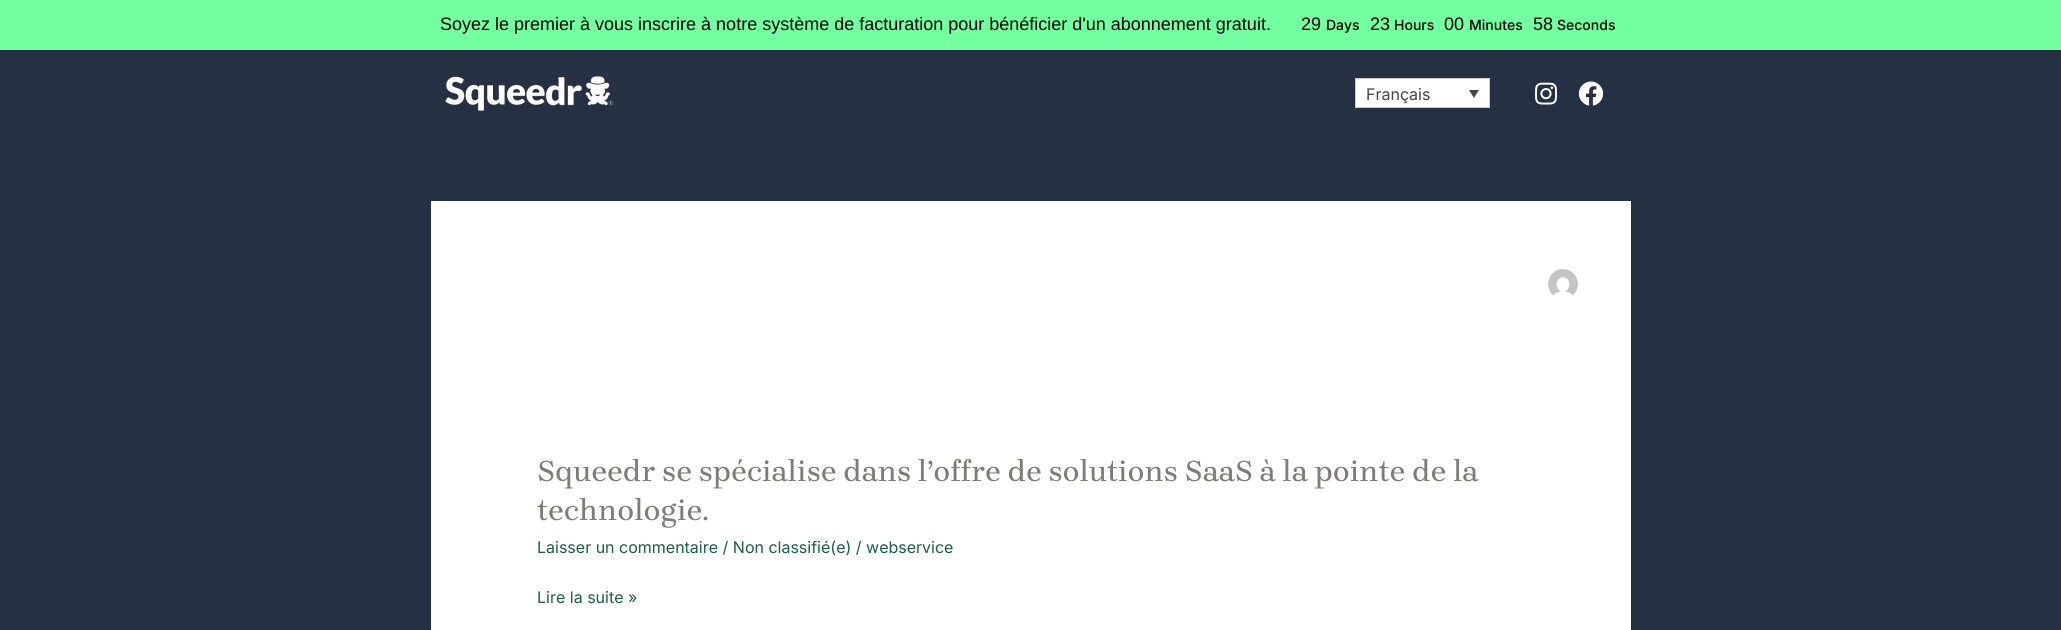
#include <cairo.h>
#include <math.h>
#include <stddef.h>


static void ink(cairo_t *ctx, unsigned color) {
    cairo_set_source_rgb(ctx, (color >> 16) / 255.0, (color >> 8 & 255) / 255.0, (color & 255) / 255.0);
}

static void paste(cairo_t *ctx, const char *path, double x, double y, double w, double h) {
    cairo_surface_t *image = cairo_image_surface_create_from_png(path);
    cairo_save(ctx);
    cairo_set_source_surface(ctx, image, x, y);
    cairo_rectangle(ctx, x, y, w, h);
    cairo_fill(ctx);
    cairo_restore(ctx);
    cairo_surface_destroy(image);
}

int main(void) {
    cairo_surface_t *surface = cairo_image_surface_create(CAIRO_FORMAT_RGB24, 2061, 630);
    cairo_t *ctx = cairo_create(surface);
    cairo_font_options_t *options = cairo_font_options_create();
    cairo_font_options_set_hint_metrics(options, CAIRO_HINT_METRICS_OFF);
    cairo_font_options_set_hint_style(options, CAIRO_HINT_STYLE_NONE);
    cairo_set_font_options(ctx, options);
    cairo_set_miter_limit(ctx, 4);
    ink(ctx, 0x263043);
    cairo_paint(ctx);
    ink(ctx, 0x73FFA1);
    cairo_rectangle(ctx, 0, 0, 2061, 50);
    cairo_fill(ctx);
    cairo_select_font_face(ctx, "Liberation Sans", CAIRO_FONT_SLANT_NORMAL, CAIRO_FONT_WEIGHT_NORMAL);
    cairo_set_font_size(ctx, 18);
    ink(ctx, 0x000000);
    cairo_move_to(ctx, 440, 30);
    cairo_show_text(ctx, "Soyez le premier à vous inscrire à notre système de facturation pour bénéficier d'un abonnement gratuit.");
    cairo_move_to(ctx, 1301, 30);
    cairo_show_text(ctx, "29");
    cairo_select_font_face(ctx, "Inter Medium", CAIRO_FONT_SLANT_NORMAL, CAIRO_FONT_WEIGHT_NORMAL);
    cairo_set_font_size(ctx, 14);
    cairo_move_to(ctx, 1326, 30);
    cairo_show_text(ctx, "Days");
    cairo_select_font_face(ctx, "Liberation Sans", CAIRO_FONT_SLANT_NORMAL, CAIRO_FONT_WEIGHT_NORMAL);
    cairo_set_font_size(ctx, 18);
    cairo_move_to(ctx, 1370, 30);
    cairo_show_text(ctx, "23");
    cairo_select_font_face(ctx, "Inter Medium", CAIRO_FONT_SLANT_NORMAL, CAIRO_FONT_WEIGHT_NORMAL);
    cairo_set_font_size(ctx, 14);
    cairo_move_to(ctx, 1394, 30);
    cairo_show_text(ctx, "Hours");
    cairo_select_font_face(ctx, "Liberation Sans", CAIRO_FONT_SLANT_NORMAL, CAIRO_FONT_WEIGHT_NORMAL);
    cairo_set_font_size(ctx, 18);
    cairo_move_to(ctx, 1444, 30);
    cairo_show_text(ctx, "00");
    cairo_select_font_face(ctx, "Inter Medium", CAIRO_FONT_SLANT_NORMAL, CAIRO_FONT_WEIGHT_NORMAL);
    cairo_set_font_size(ctx, 14);
    cairo_move_to(ctx, 1469, 30);
    cairo_show_text(ctx, "Minutes");
    cairo_select_font_face(ctx, "Liberation Sans", CAIRO_FONT_SLANT_NORMAL, CAIRO_FONT_WEIGHT_NORMAL);
    cairo_set_font_size(ctx, 18);
    cairo_move_to(ctx, 1533, 30);
    cairo_show_text(ctx, "58");
    cairo_select_font_face(ctx, "Inter Medium", CAIRO_FONT_SLANT_NORMAL, CAIRO_FONT_WEIGHT_NORMAL);
    cairo_set_font_size(ctx, 14);
    cairo_move_to(ctx, 1557, 30);
    cairo_show_text(ctx, "Seconds");
    paste(ctx, "media/1.png", 445, 76, 169, 35);
    ink(ctx, 0xFFFFFF);
    cairo_rectangle(ctx, 1355.5, 78.5, 134, 29);
    cairo_fill_preserve(ctx);
    ink(ctx, 0xCDCDCD);
    cairo_set_line_width(ctx, 1);
    cairo_stroke(ctx);
    cairo_select_font_face(ctx, "Inter", CAIRO_FONT_SLANT_NORMAL, CAIRO_FONT_WEIGHT_NORMAL);
    cairo_set_font_size(ctx, 16);
    ink(ctx, 0x444444);
    cairo_move_to(ctx, 1366, 100);
    cairo_show_text(ctx, "Français");
    cairo_new_path(ctx);
    cairo_move_to(ctx, 1469, 90);
    cairo_line_to(ctx, 1479, 90);
    cairo_line_to(ctx, 1474, 98);
    cairo_close_path(ctx);
    cairo_fill(ctx);
    paste(ctx, "media/2.png", 1535, 82, 22, 23);
    paste(ctx, "media/3.png", 1578, 81, 26, 25);
    ink(ctx, 0xFFFFFF);
    cairo_rectangle(ctx, 431, 201, 1200, 429);
    cairo_fill(ctx);
    paste(ctx, "media/4.png", 1548, 269, 30, 27);
    cairo_select_font_face(ctx, "Brygada 1918 Medium", CAIRO_FONT_SLANT_NORMAL, CAIRO_FONT_WEIGHT_NORMAL);
    cairo_set_font_size(ctx, 30);
    ink(ctx, 0x7F7C76);
    cairo_move_to(ctx, 537, 481);
    cairo_show_text(ctx, "Squeedr se spécialise dans l’offre de solutions SaaS à la pointe de la");
    cairo_move_to(ctx, 537, 520);
    cairo_show_text(ctx, "technologie.");
    cairo_select_font_face(ctx, "Inter", CAIRO_FONT_SLANT_NORMAL, CAIRO_FONT_WEIGHT_NORMAL);
    cairo_set_font_size(ctx, 16);
    ink(ctx, 0x205B4F);
    cairo_move_to(ctx, 537, 553);
    cairo_show_text(ctx, "Laisser un commentaire / Non classifié(e) / webservice");
    cairo_move_to(ctx, 537, 603);
    cairo_show_text(ctx, "Lire la suite »");
    cairo_surface_write_to_png(surface, "image.png");
    cairo_font_options_destroy(options);
    cairo_destroy(ctx);
    cairo_surface_destroy(surface);
    return 0;
}
